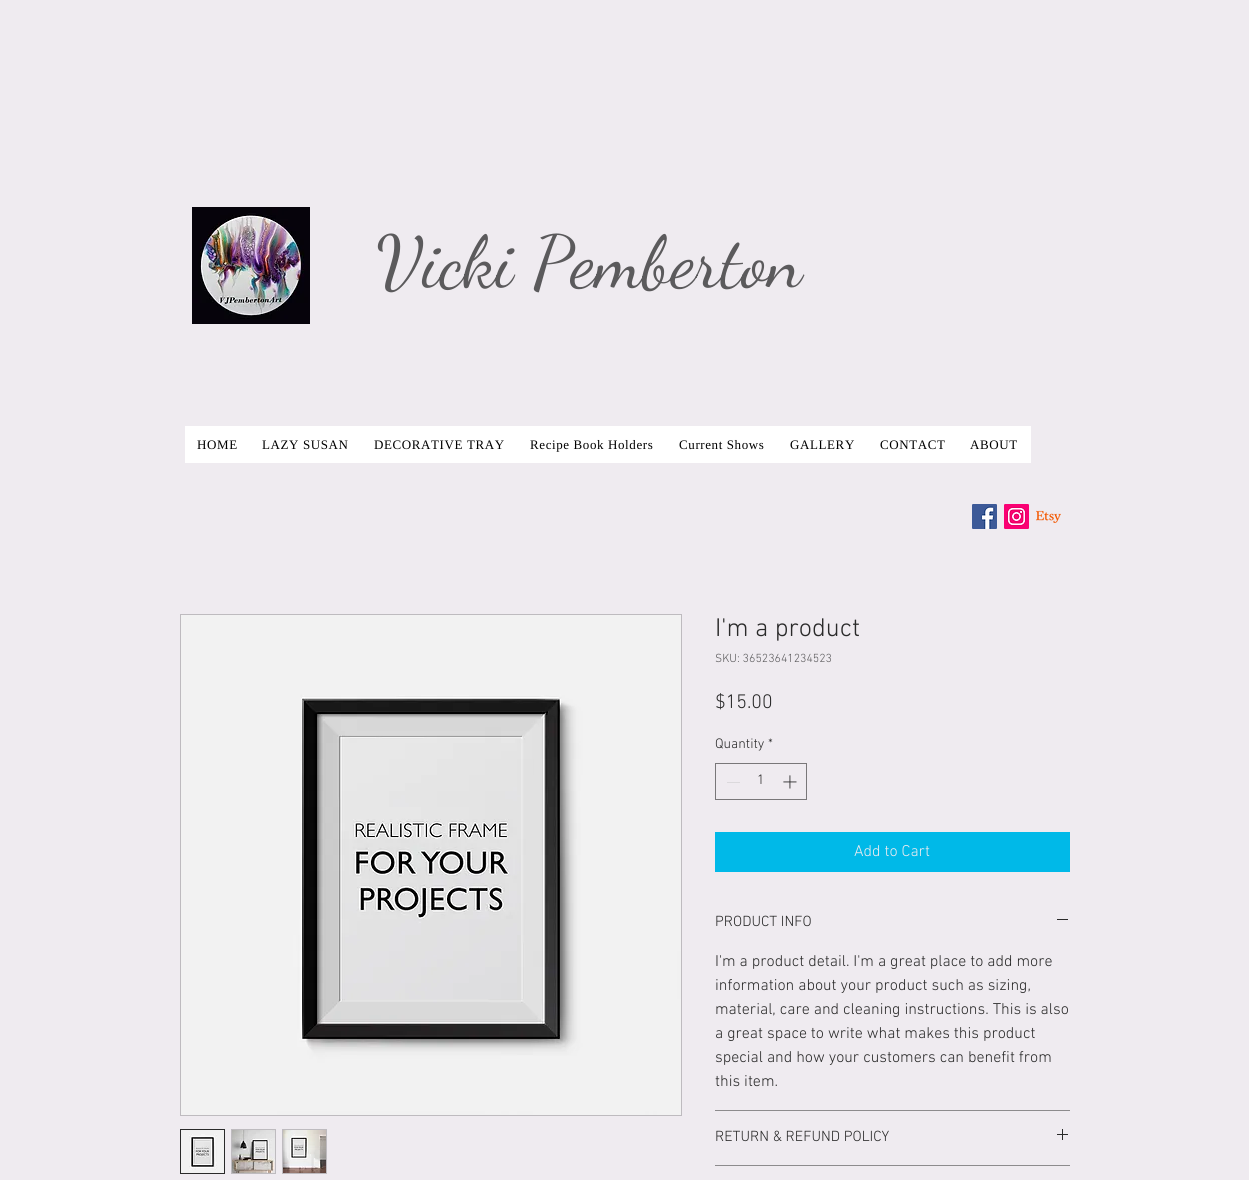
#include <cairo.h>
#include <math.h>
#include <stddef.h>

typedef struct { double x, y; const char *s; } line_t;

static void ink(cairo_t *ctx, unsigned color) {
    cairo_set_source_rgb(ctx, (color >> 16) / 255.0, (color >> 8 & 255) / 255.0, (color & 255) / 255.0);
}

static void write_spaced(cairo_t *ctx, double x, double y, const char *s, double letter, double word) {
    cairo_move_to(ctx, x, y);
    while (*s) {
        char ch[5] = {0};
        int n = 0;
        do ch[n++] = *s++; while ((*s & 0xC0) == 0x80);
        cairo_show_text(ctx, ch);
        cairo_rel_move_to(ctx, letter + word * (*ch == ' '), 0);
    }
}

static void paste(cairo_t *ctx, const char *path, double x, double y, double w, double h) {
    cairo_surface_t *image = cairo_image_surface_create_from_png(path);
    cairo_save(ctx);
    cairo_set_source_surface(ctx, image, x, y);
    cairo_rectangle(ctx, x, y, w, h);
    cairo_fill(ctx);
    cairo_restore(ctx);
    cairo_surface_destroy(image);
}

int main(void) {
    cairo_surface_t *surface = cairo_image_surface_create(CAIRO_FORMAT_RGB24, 1249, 1180);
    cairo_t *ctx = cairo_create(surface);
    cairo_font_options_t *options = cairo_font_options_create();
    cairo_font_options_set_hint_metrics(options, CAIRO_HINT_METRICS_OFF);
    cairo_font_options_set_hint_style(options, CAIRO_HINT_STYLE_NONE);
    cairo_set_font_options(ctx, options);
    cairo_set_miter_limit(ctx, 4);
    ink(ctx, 0xEFEBF0);
    cairo_paint(ctx);
    paste(ctx, "media/1.png", 192, 207, 118, 117);
    cairo_select_font_face(ctx, "Dancing Script", CAIRO_FONT_SLANT_NORMAL, CAIRO_FONT_WEIGHT_NORMAL);
    cairo_set_font_size(ctx, 73);
    ink(ctx, 0x5B5A5C);
    cairo_move_to(ctx, 376, 286);
    cairo_show_text(ctx, "Vicki Pemberton");
    ink(ctx, 0xFFFFFF);
    cairo_rectangle(ctx, 185, 426, 846, 37);
    cairo_fill(ctx);
    cairo_select_font_face(ctx, "Liberation Serif", CAIRO_FONT_SLANT_NORMAL, CAIRO_FONT_WEIGHT_NORMAL);
    cairo_set_font_size(ctx, 13);
    ink(ctx, 0x000000);
    {
        static const line_t items[] = {
            {197, 449, "HOME"},
            {262, 449, "LAZY SUSAN"},
            {374, 449, "DECORATIVE TRAY"},
            {530, 449, "Recipe Book Holders"},
            {679, 449, "Current Shows"},
            {790, 449, "GALLERY"},
            {880, 449, "CONTACT"},
            {970, 449, "ABOUT"},
        };
        for (size_t i = 0; i < sizeof items / sizeof *items; i++) {
            write_spaced(ctx, items[i].x, items[i].y, items[i].s, 0.6, 0);
        }
    }
    paste(ctx, "media/2.png", 972, 504, 25, 25);
    paste(ctx, "media/3.png", 1004, 504, 25, 25);
    paste(ctx, "media/4.png", 1036, 510, 25, 13);
    cairo_rectangle(ctx, 180.5, 614.5, 501, 501);
    ink(ctx, 0xBEBBBF);
    cairo_set_line_width(ctx, 1);
    cairo_stroke(ctx);
    paste(ctx, "media/5.png", 181, 615, 500, 500);
    cairo_rectangle(ctx, 180.5, 1129.5, 44, 44);
    ink(ctx, 0x2A2A2A);
    cairo_stroke(ctx);
    paste(ctx, "media/6.png", 181, 1130, 43, 43);
    ink(ctx, 0xBEBBBF);
    cairo_rectangle(ctx, 231, 1129, 45, 45);
    cairo_fill(ctx);
    paste(ctx, "media/7.png", 232, 1130, 43, 43);
    cairo_rectangle(ctx, 282, 1129, 45, 45);
    cairo_fill(ctx);
    paste(ctx, "media/8.png", 283, 1130, 43, 43);
    cairo_select_font_face(ctx, "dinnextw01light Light", CAIRO_FONT_SLANT_NORMAL, CAIRO_FONT_WEIGHT_NORMAL);
    cairo_set_font_size(ctx, 26);
    ink(ctx, 0x2A2A2A);
    cairo_move_to(ctx, 715, 636);
    cairo_show_text(ctx, "I'm a product");
    cairo_set_font_size(ctx, 12);
    ink(ctx, 0x5B5A5C);
    cairo_move_to(ctx, 715, 662);
    cairo_show_text(ctx, "SKU: 36523641234523");
    cairo_set_font_size(ctx, 20);
    ink(ctx, 0x2A2A2A);
    cairo_move_to(ctx, 715, 708);
    cairo_show_text(ctx, "$15.00");
    cairo_set_font_size(ctx, 14);
    cairo_move_to(ctx, 715, 748);
    cairo_show_text(ctx, "Quantity");
    cairo_move_to(ctx, 768, 748);
    cairo_show_text(ctx, "*");
    cairo_rectangle(ctx, 715.5, 763.5, 91, 36);
    ink(ctx, 0x797779);
    cairo_stroke(ctx);
    ink(ctx, 0xDBD9DC);
    cairo_rectangle(ctx, 727, 782, 13, 1);
    cairo_fill(ctx);
    ink(ctx, 0x2A2A2A);
    cairo_move_to(ctx, 757, 784);
    cairo_show_text(ctx, "1");
    paste(ctx, "media/9.png", 783, 775, 14, 14);
    ink(ctx, 0x00B9E8);
    cairo_rectangle(ctx, 715, 832, 355, 40);
    cairo_fill(ctx);
    cairo_set_font_size(ctx, 16);
    ink(ctx, 0xEFEBF0);
    cairo_move_to(ctx, 854, 856);
    cairo_show_text(ctx, "Add to Cart");
    ink(ctx, 0x8D8B8D);
    cairo_rectangle(ctx, 715, 1110, 355, 1);
    cairo_fill(ctx);
    cairo_set_font_size(ctx, 15);
    ink(ctx, 0x2A2A2A);
    cairo_move_to(ctx, 715, 926);
    cairo_show_text(ctx, "PRODUCT INFO");
    cairo_rectangle(ctx, 1057, 919, 11, 1);
    cairo_fill(ctx);
    cairo_set_font_size(ctx, 16);
    {
        static const line_t items[] = {
            {715, 966, "I'm a product detail. I'm a great place to add more"},
            {715, 990, "information about your product such as sizing,"},
            {715, 1014, "material, care and cleaning instructions. This is also"},
            {715, 1038, "a great space to write what makes this product"},
            {715, 1062, "special and how your customers can benefit from"},
            {715, 1086, "this item."},
        };
        for (size_t i = 0; i < sizeof items / sizeof *items; i++) {
            cairo_move_to(ctx, items[i].x, items[i].y);
            cairo_show_text(ctx, items[i].s);
        }
    }
    ink(ctx, 0x8D8B8D);
    cairo_rectangle(ctx, 715, 1165, 355, 1);
    cairo_fill(ctx);
    cairo_set_font_size(ctx, 15);
    ink(ctx, 0x2A2A2A);
    cairo_move_to(ctx, 715, 1141);
    cairo_show_text(ctx, "RETURN & REFUND POLICY");
    paste(ctx, "media/10.png", 1057, 1129, 11, 11);
    cairo_surface_write_to_png(surface, "image.png");
    cairo_font_options_destroy(options);
    cairo_destroy(ctx);
    cairo_surface_destroy(surface);
    return 0;
}
